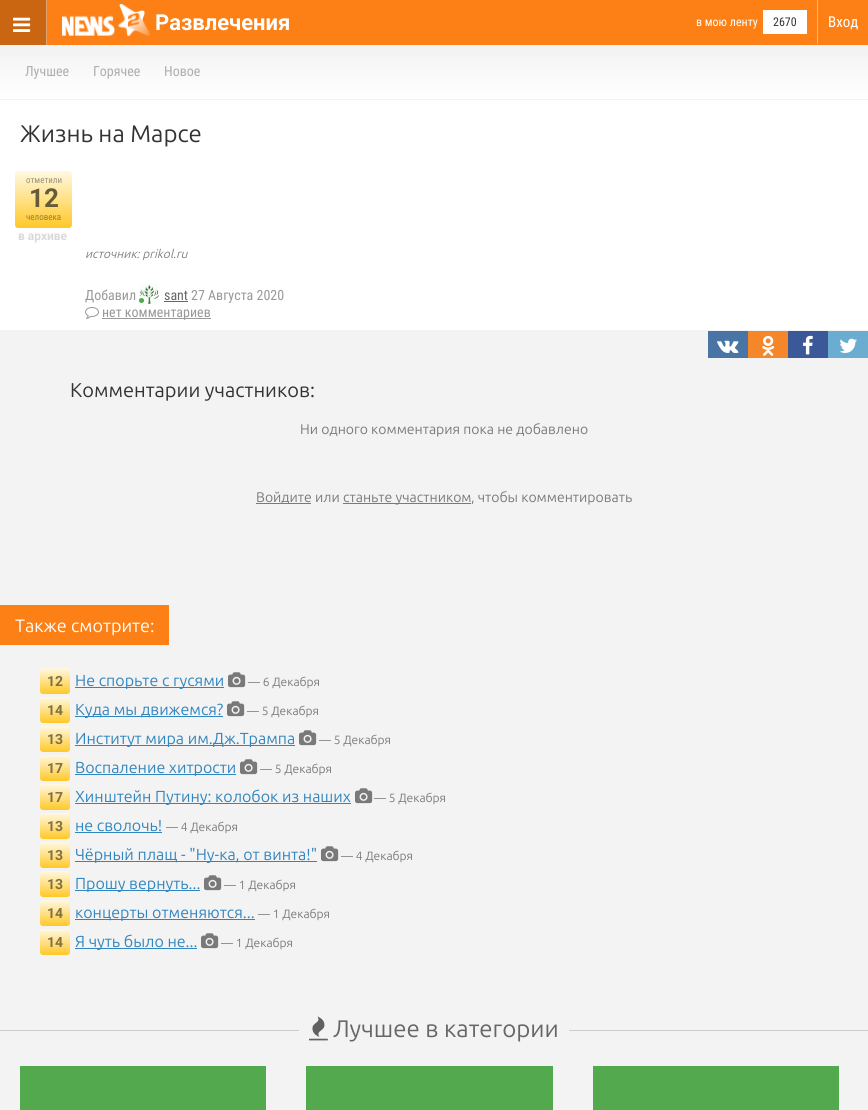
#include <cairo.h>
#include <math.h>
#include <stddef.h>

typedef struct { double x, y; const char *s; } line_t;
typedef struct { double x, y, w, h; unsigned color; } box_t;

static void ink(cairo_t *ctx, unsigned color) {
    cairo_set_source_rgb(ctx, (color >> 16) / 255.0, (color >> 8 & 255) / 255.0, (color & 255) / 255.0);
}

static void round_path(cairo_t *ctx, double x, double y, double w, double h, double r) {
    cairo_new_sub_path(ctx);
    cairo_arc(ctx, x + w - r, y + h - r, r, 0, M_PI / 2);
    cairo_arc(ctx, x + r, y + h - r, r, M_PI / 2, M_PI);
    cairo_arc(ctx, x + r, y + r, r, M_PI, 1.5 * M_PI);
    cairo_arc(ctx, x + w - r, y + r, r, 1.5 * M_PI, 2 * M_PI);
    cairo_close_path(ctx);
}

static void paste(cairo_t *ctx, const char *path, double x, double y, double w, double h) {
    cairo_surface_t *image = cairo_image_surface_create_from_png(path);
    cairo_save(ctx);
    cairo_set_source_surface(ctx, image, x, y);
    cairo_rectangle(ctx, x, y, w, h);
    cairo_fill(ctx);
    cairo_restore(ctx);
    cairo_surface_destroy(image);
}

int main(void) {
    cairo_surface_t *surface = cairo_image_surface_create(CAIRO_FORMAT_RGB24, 868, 1110);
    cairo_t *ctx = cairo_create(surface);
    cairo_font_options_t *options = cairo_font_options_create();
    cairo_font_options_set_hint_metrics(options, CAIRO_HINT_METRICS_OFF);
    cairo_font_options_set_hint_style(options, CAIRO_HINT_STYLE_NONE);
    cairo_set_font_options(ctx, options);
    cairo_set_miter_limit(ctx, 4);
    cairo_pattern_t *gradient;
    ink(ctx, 0xF3F3F3);
    cairo_paint(ctx);
    {
        static const box_t items[] = {
            {47, 0, 821, 45, 0xFC8016},
            {0, 0, 46, 45, 0xCA6612},
            {46, 0, 1, 45, 0xDFA371},
        };
        for (size_t i = 0; i < sizeof items / sizeof *items; i++) {
            ink(ctx, items[i].color);
            cairo_rectangle(ctx, items[i].x, items[i].y, items[i].w, items[i].h);
            cairo_fill(ctx);
        }
    }
    paste(ctx, "media/1.png", 13, 17, 18, 15);
    paste(ctx, "media/2.png", 62, 4, 88, 32);
    cairo_select_font_face(ctx, "Roboto", CAIRO_FONT_SLANT_NORMAL, CAIRO_FONT_WEIGHT_BOLD);
    cairo_set_font_size(ctx, 22);
    ink(ctx, 0xFFFFFF);
    cairo_move_to(ctx, 155, 30);
    cairo_show_text(ctx, "Развлечения");
    cairo_select_font_face(ctx, "Roboto Condensed", CAIRO_FONT_SLANT_NORMAL, CAIRO_FONT_WEIGHT_NORMAL);
    cairo_set_font_size(ctx, 12);
    cairo_move_to(ctx, 696, 26);
    cairo_show_text(ctx, "в мою ленту");
    cairo_rectangle(ctx, 763, 10, 44, 24);
    cairo_fill(ctx);
    ink(ctx, 0x333333);
    cairo_move_to(ctx, 773, 26);
    cairo_show_text(ctx, "2670");
    ink(ctx, 0xFDB373);
    cairo_rectangle(ctx, 817, 0, 1, 44);
    cairo_fill(ctx);
    cairo_set_font_size(ctx, 15);
    ink(ctx, 0xFFFFFF);
    cairo_move_to(ctx, 828, 27);
    cairo_show_text(ctx, "Вход");
    gradient = cairo_pattern_create_linear(434, 45, 434, 99);
    cairo_pattern_add_color_stop_rgba(gradient, 0, 0.953, 0.953, 0.953, 1);
    cairo_pattern_add_color_stop_rgba(gradient, 1, 1, 1, 1, 1);
    cairo_set_source(ctx, gradient);
    cairo_pattern_destroy(gradient);
    cairo_rectangle(ctx, 0, 56, 868, 43);
    cairo_fill(ctx);
    cairo_set_font_size(ctx, 14);
    ink(ctx, 0xAEAEAE);
    {
        static const line_t items[] = {
            {25, 76, "Лучшее"},
            {93, 76, "Горячее"},
            {164, 76, "Новое"},
        };
        for (size_t i = 0; i < sizeof items / sizeof *items; i++) {
            cairo_move_to(ctx, items[i].x, items[i].y);
            cairo_show_text(ctx, items[i].s);
        }
    }
    ink(ctx, 0xFFFFFF);
    cairo_rectangle(ctx, 0, 100, 868, 230);
    cairo_fill(ctx);
    cairo_select_font_face(ctx, "Ubuntu", CAIRO_FONT_SLANT_NORMAL, CAIRO_FONT_WEIGHT_NORMAL);
    cairo_set_font_size(ctx, 24);
    ink(ctx, 0x333333);
    cairo_move_to(ctx, 20, 142);
    cairo_show_text(ctx, "Жизнь на Марсе");
    gradient = cairo_pattern_create_linear(44, 171, 44, 228);
    cairo_pattern_add_color_stop_rgba(gradient, 0, 1, 0.976, 0.89, 1);
    cairo_pattern_add_color_stop_rgba(gradient, 1, 1, 0.784, 0.157, 1);
    cairo_set_source(ctx, gradient);
    cairo_pattern_destroy(gradient);
    round_path(ctx, 15, 171, 57, 57, 3);
    cairo_fill(ctx);
    cairo_select_font_face(ctx, "Roboto Condensed", CAIRO_FONT_SLANT_NORMAL, CAIRO_FONT_WEIGHT_NORMAL);
    cairo_set_font_size(ctx, 9);
    ink(ctx, 0x999175);
    cairo_move_to(ctx, 26, 183);
    cairo_show_text(ctx, "отметили");
    cairo_select_font_face(ctx, "Roboto", CAIRO_FONT_SLANT_NORMAL, CAIRO_FONT_WEIGHT_BOLD);
    cairo_set_font_size(ctx, 26);
    ink(ctx, 0x665B38);
    cairo_move_to(ctx, 29, 207);
    cairo_show_text(ctx, "12");
    cairo_select_font_face(ctx, "Roboto Condensed", CAIRO_FONT_SLANT_NORMAL, CAIRO_FONT_WEIGHT_NORMAL);
    cairo_set_font_size(ctx, 9);
    ink(ctx, 0x997D2D);
    cairo_move_to(ctx, 26, 220);
    cairo_show_text(ctx, "человека");
    cairo_select_font_face(ctx, "Roboto", CAIRO_FONT_SLANT_NORMAL, CAIRO_FONT_WEIGHT_BOLD);
    cairo_set_font_size(ctx, 12);
    ink(ctx, 0xD9D9D9);
    cairo_move_to(ctx, 18, 240);
    cairo_show_text(ctx, "в архиве");
    cairo_select_font_face(ctx, "Ubuntu", CAIRO_FONT_SLANT_ITALIC, CAIRO_FONT_WEIGHT_NORMAL);
    ink(ctx, 0x808080);
    cairo_move_to(ctx, 85, 258);
    cairo_show_text(ctx, "источник: prikol.ru");
    cairo_select_font_face(ctx, "Roboto Condensed", CAIRO_FONT_SLANT_NORMAL, CAIRO_FONT_WEIGHT_NORMAL);
    cairo_set_font_size(ctx, 14);
    ink(ctx, 0x999999);
    cairo_move_to(ctx, 85, 300);
    cairo_show_text(ctx, "Добавил");
    paste(ctx, "media/3.png", 139, 284, 20, 20);
    ink(ctx, 0x52A94E);
    cairo_arc(ctx, 141.5, 300.5, 3.5, 0, 2 * M_PI);
    cairo_fill_preserve(ctx);
    ink(ctx, 0xFFFFFF);
    cairo_stroke(ctx);
    ink(ctx, 0x666666);
    cairo_move_to(ctx, 164, 300);
    cairo_show_text(ctx, "sant");
    cairo_rectangle(ctx, 164, 301, 24, 1);
    cairo_fill(ctx);
    ink(ctx, 0x999999);
    cairo_move_to(ctx, 191, 300);
    cairo_show_text(ctx, "27 Августа 2020");
    paste(ctx, "media/4.png", 85, 307, 14, 12);
    cairo_rectangle(ctx, 102, 318, 109, 1);
    cairo_fill(ctx);
    cairo_move_to(ctx, 102, 317);
    cairo_show_text(ctx, "нет комментариев");
    ink(ctx, 0x4874A6);
    cairo_rectangle(ctx, 708, 331, 40, 27);
    cairo_fill(ctx);
    paste(ctx, "media/5.png", 717, 340, 22, 13);
    ink(ctx, 0xF58629);
    cairo_rectangle(ctx, 748, 331, 40, 27);
    cairo_fill(ctx);
    paste(ctx, "media/6.png", 762, 335, 13, 21);
    ink(ctx, 0x3B5998);
    cairo_rectangle(ctx, 788, 331, 40, 27);
    cairo_fill(ctx);
    paste(ctx, "media/7.png", 803, 335, 10, 20);
    ink(ctx, 0x6AADD1);
    cairo_rectangle(ctx, 828, 331, 40, 27);
    cairo_fill(ctx);
    paste(ctx, "media/8.png", 839, 338, 18, 15);
    cairo_select_font_face(ctx, "Ubuntu", CAIRO_FONT_SLANT_NORMAL, CAIRO_FONT_WEIGHT_NORMAL);
    cairo_set_font_size(ctx, 20);
    ink(ctx, 0x333333);
    cairo_move_to(ctx, 70, 397);
    cairo_show_text(ctx, "Комментарии участников:");
    cairo_set_font_size(ctx, 14);
    ink(ctx, 0x7A7A7A);
    cairo_move_to(ctx, 300, 434);
    cairo_show_text(ctx, "Ни одного комментария пока не добавлено");
    cairo_rectangle(ctx, 256, 503, 55, 1);
    cairo_fill(ctx);
    cairo_move_to(ctx, 256, 502);
    cairo_show_text(ctx, "Войдите");
    cairo_move_to(ctx, 315, 502);
    cairo_show_text(ctx, "или");
    cairo_rectangle(ctx, 343, 503, 128, 1);
    cairo_fill(ctx);
    cairo_move_to(ctx, 343, 502);
    cairo_show_text(ctx, "станьте участником");
    cairo_move_to(ctx, 471, 502);
    cairo_show_text(ctx, ", чтобы комментировать");
    ink(ctx, 0xFC8016);
    cairo_rectangle(ctx, 0, 605, 169, 40);
    cairo_fill(ctx);
    cairo_set_font_size(ctx, 18);
    ink(ctx, 0xFFFFFF);
    cairo_move_to(ctx, 15, 632);
    cairo_show_text(ctx, "Также смотрите:");
    gradient = cairo_pattern_create_linear(55, 668, 55, 694);
    cairo_pattern_add_color_stop_rgba(gradient, 0, 1, 0.976, 0.89, 1);
    cairo_pattern_add_color_stop_rgba(gradient, 1, 1, 0.784, 0.157, 1);
    cairo_set_source(ctx, gradient);
    cairo_pattern_destroy(gradient);
    round_path(ctx, 40, 668, 30, 26, 3);
    cairo_fill(ctx);
    cairo_select_font_face(ctx, "Roboto", CAIRO_FONT_SLANT_NORMAL, CAIRO_FONT_WEIGHT_BOLD);
    cairo_set_font_size(ctx, 14);
    ink(ctx, 0x807044);
    cairo_move_to(ctx, 47, 686);
    cairo_show_text(ctx, "12");
    ink(ctx, 0x3286BF);
    cairo_rectangle(ctx, 75, 687, 149, 1);
    cairo_fill(ctx);
    cairo_select_font_face(ctx, "Ubuntu", CAIRO_FONT_SLANT_NORMAL, CAIRO_FONT_WEIGHT_NORMAL);
    cairo_set_font_size(ctx, 16);
    cairo_move_to(ctx, 75, 686);
    cairo_show_text(ctx, "Не спорьте с гусями");
    paste(ctx, "media/9.png", 228, 672, 18, 16);
    cairo_set_font_size(ctx, 12);
    ink(ctx, 0x7A7A7A);
    cairo_move_to(ctx, 248, 686);
    cairo_show_text(ctx, "— 6 Декабря");
    gradient = cairo_pattern_create_linear(55, 697, 55, 723);
    cairo_pattern_add_color_stop_rgba(gradient, 0, 1, 0.976, 0.89, 1);
    cairo_pattern_add_color_stop_rgba(gradient, 1, 1, 0.784, 0.157, 1);
    cairo_set_source(ctx, gradient);
    cairo_pattern_destroy(gradient);
    round_path(ctx, 40, 697, 30, 26, 3);
    cairo_fill(ctx);
    cairo_select_font_face(ctx, "Roboto", CAIRO_FONT_SLANT_NORMAL, CAIRO_FONT_WEIGHT_BOLD);
    cairo_set_font_size(ctx, 14);
    ink(ctx, 0x807044);
    cairo_move_to(ctx, 47, 715);
    cairo_show_text(ctx, "14");
    ink(ctx, 0x3286BF);
    cairo_rectangle(ctx, 75, 716, 148, 1);
    cairo_fill(ctx);
    cairo_select_font_face(ctx, "Ubuntu", CAIRO_FONT_SLANT_NORMAL, CAIRO_FONT_WEIGHT_NORMAL);
    cairo_set_font_size(ctx, 16);
    cairo_move_to(ctx, 75, 715);
    cairo_show_text(ctx, "Куда мы движемся?");
    paste(ctx, "media/9.png", 227, 701, 18, 16);
    cairo_set_font_size(ctx, 12);
    ink(ctx, 0x7A7A7A);
    cairo_move_to(ctx, 247, 715);
    cairo_show_text(ctx, "— 5 Декабря");
    gradient = cairo_pattern_create_linear(55, 726, 55, 752);
    cairo_pattern_add_color_stop_rgba(gradient, 0, 1, 0.976, 0.89, 1);
    cairo_pattern_add_color_stop_rgba(gradient, 1, 1, 0.784, 0.157, 1);
    cairo_set_source(ctx, gradient);
    cairo_pattern_destroy(gradient);
    round_path(ctx, 40, 726, 30, 26, 3);
    cairo_fill(ctx);
    cairo_select_font_face(ctx, "Roboto", CAIRO_FONT_SLANT_NORMAL, CAIRO_FONT_WEIGHT_BOLD);
    cairo_set_font_size(ctx, 14);
    ink(ctx, 0x807044);
    cairo_move_to(ctx, 47, 744);
    cairo_show_text(ctx, "13");
    ink(ctx, 0x3286BF);
    cairo_rectangle(ctx, 75, 745, 220, 1);
    cairo_fill(ctx);
    cairo_select_font_face(ctx, "Ubuntu", CAIRO_FONT_SLANT_NORMAL, CAIRO_FONT_WEIGHT_NORMAL);
    cairo_set_font_size(ctx, 16);
    cairo_move_to(ctx, 75, 744);
    cairo_show_text(ctx, "Институт мира им.Дж.Трампа");
    paste(ctx, "media/9.png", 299, 730, 18, 16);
    cairo_set_font_size(ctx, 12);
    ink(ctx, 0x7A7A7A);
    cairo_move_to(ctx, 319, 744);
    cairo_show_text(ctx, "— 5 Декабря");
    gradient = cairo_pattern_create_linear(55, 755, 55, 781);
    cairo_pattern_add_color_stop_rgba(gradient, 0, 1, 0.976, 0.89, 1);
    cairo_pattern_add_color_stop_rgba(gradient, 1, 1, 0.784, 0.157, 1);
    cairo_set_source(ctx, gradient);
    cairo_pattern_destroy(gradient);
    round_path(ctx, 40, 755, 30, 26, 3);
    cairo_fill(ctx);
    cairo_select_font_face(ctx, "Roboto", CAIRO_FONT_SLANT_NORMAL, CAIRO_FONT_WEIGHT_BOLD);
    cairo_set_font_size(ctx, 14);
    ink(ctx, 0x807044);
    cairo_move_to(ctx, 47, 773);
    cairo_show_text(ctx, "17");
    ink(ctx, 0x3286BF);
    cairo_rectangle(ctx, 75, 774, 161, 1);
    cairo_fill(ctx);
    cairo_select_font_face(ctx, "Ubuntu", CAIRO_FONT_SLANT_NORMAL, CAIRO_FONT_WEIGHT_NORMAL);
    cairo_set_font_size(ctx, 16);
    cairo_move_to(ctx, 75, 773);
    cairo_show_text(ctx, "Воспаление хитрости");
    paste(ctx, "media/9.png", 240, 759, 18, 16);
    cairo_set_font_size(ctx, 12);
    ink(ctx, 0x7A7A7A);
    cairo_move_to(ctx, 260, 773);
    cairo_show_text(ctx, "— 5 Декабря");
    gradient = cairo_pattern_create_linear(55, 784, 55, 810);
    cairo_pattern_add_color_stop_rgba(gradient, 0, 1, 0.976, 0.89, 1);
    cairo_pattern_add_color_stop_rgba(gradient, 1, 1, 0.784, 0.157, 1);
    cairo_set_source(ctx, gradient);
    cairo_pattern_destroy(gradient);
    round_path(ctx, 40, 784, 30, 26, 3);
    cairo_fill(ctx);
    cairo_select_font_face(ctx, "Roboto", CAIRO_FONT_SLANT_NORMAL, CAIRO_FONT_WEIGHT_BOLD);
    cairo_set_font_size(ctx, 14);
    ink(ctx, 0x807044);
    cairo_move_to(ctx, 47, 802);
    cairo_show_text(ctx, "17");
    ink(ctx, 0x3286BF);
    cairo_rectangle(ctx, 75, 803, 276, 1);
    cairo_fill(ctx);
    cairo_select_font_face(ctx, "Ubuntu", CAIRO_FONT_SLANT_NORMAL, CAIRO_FONT_WEIGHT_NORMAL);
    cairo_set_font_size(ctx, 16);
    cairo_move_to(ctx, 75, 802);
    cairo_show_text(ctx, "Хинштейн Путину: колобок из наших");
    paste(ctx, "media/9.png", 355, 788, 18, 16);
    cairo_set_font_size(ctx, 12);
    ink(ctx, 0x7A7A7A);
    cairo_move_to(ctx, 374, 802);
    cairo_show_text(ctx, "— 5 Декабря");
    gradient = cairo_pattern_create_linear(55, 813, 55, 839);
    cairo_pattern_add_color_stop_rgba(gradient, 0, 1, 0.976, 0.89, 1);
    cairo_pattern_add_color_stop_rgba(gradient, 1, 1, 0.784, 0.157, 1);
    cairo_set_source(ctx, gradient);
    cairo_pattern_destroy(gradient);
    round_path(ctx, 40, 813, 30, 26, 3);
    cairo_fill(ctx);
    cairo_select_font_face(ctx, "Roboto", CAIRO_FONT_SLANT_NORMAL, CAIRO_FONT_WEIGHT_BOLD);
    cairo_set_font_size(ctx, 14);
    ink(ctx, 0x807044);
    cairo_move_to(ctx, 47, 831);
    cairo_show_text(ctx, "13");
    cairo_select_font_face(ctx, "Ubuntu", CAIRO_FONT_SLANT_NORMAL, CAIRO_FONT_WEIGHT_NORMAL);
    cairo_set_font_size(ctx, 16);
    ink(ctx, 0x3286BF);
    cairo_move_to(ctx, 75, 831);
    cairo_show_text(ctx, "не сволочь!");
    cairo_set_font_size(ctx, 12);
    ink(ctx, 0x7A7A7A);
    cairo_move_to(ctx, 166, 831);
    cairo_show_text(ctx, "— 4 Декабря");
    ink(ctx, 0x3286BF);
    cairo_rectangle(ctx, 75, 832, 87, 1);
    cairo_fill(ctx);
    gradient = cairo_pattern_create_linear(55, 842, 55, 868);
    cairo_pattern_add_color_stop_rgba(gradient, 0, 1, 0.976, 0.89, 1);
    cairo_pattern_add_color_stop_rgba(gradient, 1, 1, 0.784, 0.157, 1);
    cairo_set_source(ctx, gradient);
    cairo_pattern_destroy(gradient);
    round_path(ctx, 40, 842, 30, 26, 3);
    cairo_fill(ctx);
    cairo_select_font_face(ctx, "Roboto", CAIRO_FONT_SLANT_NORMAL, CAIRO_FONT_WEIGHT_BOLD);
    cairo_set_font_size(ctx, 14);
    ink(ctx, 0x807044);
    cairo_move_to(ctx, 47, 860);
    cairo_show_text(ctx, "13");
    ink(ctx, 0x3286BF);
    cairo_rectangle(ctx, 75, 861, 242, 1);
    cairo_fill(ctx);
    cairo_select_font_face(ctx, "Ubuntu", CAIRO_FONT_SLANT_NORMAL, CAIRO_FONT_WEIGHT_NORMAL);
    cairo_set_font_size(ctx, 16);
    cairo_move_to(ctx, 75, 860);
    cairo_show_text(ctx, "Чёрный плащ - \"Ну-ка, от винта!\"");
    paste(ctx, "media/9.png", 321, 846, 18, 16);
    cairo_set_font_size(ctx, 12);
    ink(ctx, 0x7A7A7A);
    cairo_move_to(ctx, 341, 860);
    cairo_show_text(ctx, "— 4 Декабря");
    gradient = cairo_pattern_create_linear(55, 871, 55, 897);
    cairo_pattern_add_color_stop_rgba(gradient, 0, 1, 0.976, 0.89, 1);
    cairo_pattern_add_color_stop_rgba(gradient, 1, 1, 0.784, 0.157, 1);
    cairo_set_source(ctx, gradient);
    cairo_pattern_destroy(gradient);
    round_path(ctx, 40, 871, 30, 26, 3);
    cairo_fill(ctx);
    cairo_select_font_face(ctx, "Roboto", CAIRO_FONT_SLANT_NORMAL, CAIRO_FONT_WEIGHT_BOLD);
    cairo_set_font_size(ctx, 14);
    ink(ctx, 0x807044);
    cairo_move_to(ctx, 47, 889);
    cairo_show_text(ctx, "13");
    ink(ctx, 0x3286BF);
    cairo_rectangle(ctx, 75, 890, 125, 1);
    cairo_fill(ctx);
    cairo_select_font_face(ctx, "Ubuntu", CAIRO_FONT_SLANT_NORMAL, CAIRO_FONT_WEIGHT_NORMAL);
    cairo_set_font_size(ctx, 16);
    cairo_move_to(ctx, 75, 889);
    cairo_show_text(ctx, "Прошу вернуть...");
    paste(ctx, "media/9.png", 204, 875, 18, 16);
    cairo_set_font_size(ctx, 12);
    ink(ctx, 0x7A7A7A);
    cairo_move_to(ctx, 224, 889);
    cairo_show_text(ctx, "— 1 Декабря");
    gradient = cairo_pattern_create_linear(55, 900, 55, 926);
    cairo_pattern_add_color_stop_rgba(gradient, 0, 1, 0.976, 0.89, 1);
    cairo_pattern_add_color_stop_rgba(gradient, 1, 1, 0.784, 0.157, 1);
    cairo_set_source(ctx, gradient);
    cairo_pattern_destroy(gradient);
    round_path(ctx, 40, 900, 30, 26, 3);
    cairo_fill(ctx);
    cairo_select_font_face(ctx, "Roboto", CAIRO_FONT_SLANT_NORMAL, CAIRO_FONT_WEIGHT_BOLD);
    cairo_set_font_size(ctx, 14);
    ink(ctx, 0x807044);
    cairo_move_to(ctx, 47, 918);
    cairo_show_text(ctx, "14");
    ink(ctx, 0x3286BF);
    cairo_rectangle(ctx, 75, 919, 180, 1);
    cairo_fill(ctx);
    cairo_select_font_face(ctx, "Ubuntu", CAIRO_FONT_SLANT_NORMAL, CAIRO_FONT_WEIGHT_NORMAL);
    cairo_set_font_size(ctx, 16);
    cairo_move_to(ctx, 75, 918);
    cairo_show_text(ctx, "концерты отменяются...");
    cairo_set_font_size(ctx, 12);
    ink(ctx, 0x7A7A7A);
    cairo_move_to(ctx, 258, 918);
    cairo_show_text(ctx, "— 1 Декабря");
    gradient = cairo_pattern_create_linear(55, 929, 55, 955);
    cairo_pattern_add_color_stop_rgba(gradient, 0, 1, 0.976, 0.89, 1);
    cairo_pattern_add_color_stop_rgba(gradient, 1, 1, 0.784, 0.157, 1);
    cairo_set_source(ctx, gradient);
    cairo_pattern_destroy(gradient);
    round_path(ctx, 40, 929, 30, 26, 3);
    cairo_fill(ctx);
    cairo_select_font_face(ctx, "Roboto", CAIRO_FONT_SLANT_NORMAL, CAIRO_FONT_WEIGHT_BOLD);
    cairo_set_font_size(ctx, 14);
    ink(ctx, 0x807044);
    cairo_move_to(ctx, 47, 947);
    cairo_show_text(ctx, "14");
    ink(ctx, 0x3286BF);
    cairo_rectangle(ctx, 75, 948, 122, 1);
    cairo_fill(ctx);
    cairo_select_font_face(ctx, "Ubuntu", CAIRO_FONT_SLANT_NORMAL, CAIRO_FONT_WEIGHT_NORMAL);
    cairo_set_font_size(ctx, 16);
    cairo_move_to(ctx, 75, 947);
    cairo_show_text(ctx, "Я чуть было не...");
    paste(ctx, "media/9.png", 201, 933, 18, 16);
    cairo_set_font_size(ctx, 12);
    ink(ctx, 0x7A7A7A);
    cairo_move_to(ctx, 221, 947);
    cairo_show_text(ctx, "— 1 Декабря");
    ink(ctx, 0xCCCCCC);
    cairo_rectangle(ctx, 0, 1030, 868, 1);
    cairo_fill(ctx);
    ink(ctx, 0xF3F3F3);
    cairo_rectangle(ctx, 299, 1030, 270, 1);
    cairo_fill(ctx);
    paste(ctx, "media/10.png", 309, 1016, 19, 25);
    cairo_set_font_size(ctx, 24);
    ink(ctx, 0x666666);
    cairo_move_to(ctx, 333, 1037);
    cairo_show_text(ctx, "Лучшее в категории");
    {
        static const box_t items[] = {
            {20, 1066, 246, 44, 0x52A94E},
            {306, 1066, 247, 44, 0x52A94E},
            {593, 1066, 246, 44, 0x52A94E},
        };
        for (size_t i = 0; i < sizeof items / sizeof *items; i++) {
            ink(ctx, items[i].color);
            cairo_rectangle(ctx, items[i].x, items[i].y, items[i].w, items[i].h);
            cairo_fill(ctx);
        }
    }
    cairo_surface_write_to_png(surface, "image.png");
    cairo_font_options_destroy(options);
    cairo_destroy(ctx);
    cairo_surface_destroy(surface);
    return 0;
}
